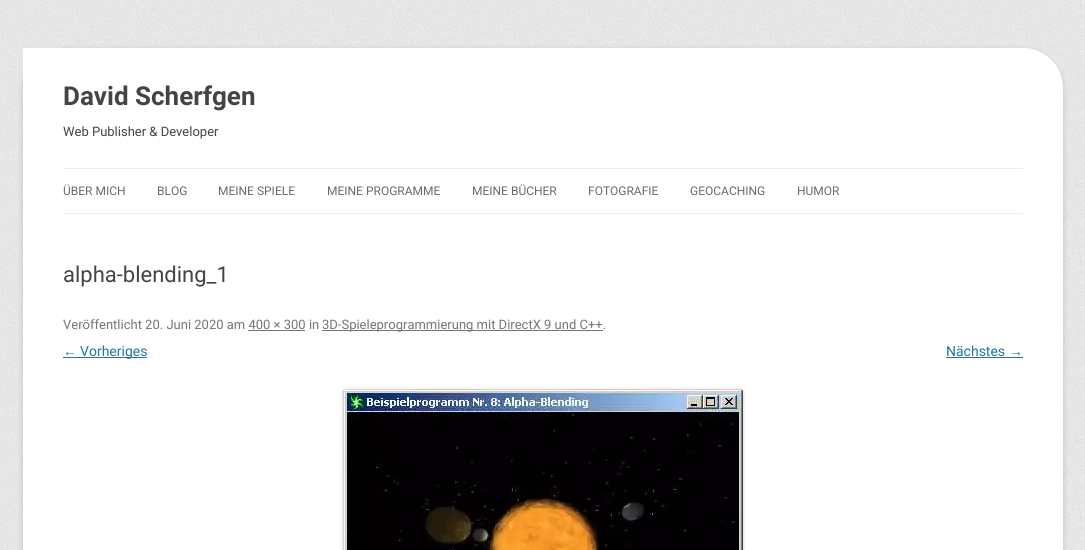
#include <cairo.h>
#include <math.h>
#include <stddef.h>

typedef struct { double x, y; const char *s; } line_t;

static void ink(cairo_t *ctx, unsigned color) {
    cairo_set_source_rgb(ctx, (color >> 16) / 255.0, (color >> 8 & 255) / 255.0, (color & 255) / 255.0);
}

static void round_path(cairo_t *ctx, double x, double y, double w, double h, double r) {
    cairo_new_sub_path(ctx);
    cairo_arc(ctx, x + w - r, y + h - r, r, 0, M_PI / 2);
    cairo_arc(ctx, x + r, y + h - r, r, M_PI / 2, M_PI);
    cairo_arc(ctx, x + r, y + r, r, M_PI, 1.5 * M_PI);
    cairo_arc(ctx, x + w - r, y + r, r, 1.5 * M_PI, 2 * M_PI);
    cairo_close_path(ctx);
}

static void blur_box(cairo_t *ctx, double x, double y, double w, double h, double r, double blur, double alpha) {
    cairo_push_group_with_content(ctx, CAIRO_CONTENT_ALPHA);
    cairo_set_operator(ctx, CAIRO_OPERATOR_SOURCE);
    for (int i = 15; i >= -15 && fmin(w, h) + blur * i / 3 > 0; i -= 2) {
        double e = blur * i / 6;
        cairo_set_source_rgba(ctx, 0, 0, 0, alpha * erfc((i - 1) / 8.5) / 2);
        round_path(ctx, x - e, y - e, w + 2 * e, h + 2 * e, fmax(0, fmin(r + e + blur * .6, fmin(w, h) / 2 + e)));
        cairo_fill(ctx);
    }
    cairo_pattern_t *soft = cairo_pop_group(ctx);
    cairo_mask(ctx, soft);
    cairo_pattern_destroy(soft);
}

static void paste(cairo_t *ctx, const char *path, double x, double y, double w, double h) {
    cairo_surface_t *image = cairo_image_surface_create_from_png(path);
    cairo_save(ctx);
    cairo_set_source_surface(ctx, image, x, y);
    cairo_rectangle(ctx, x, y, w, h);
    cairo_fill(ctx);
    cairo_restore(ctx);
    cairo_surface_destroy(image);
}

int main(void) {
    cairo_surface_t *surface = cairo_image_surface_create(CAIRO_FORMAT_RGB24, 1085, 550);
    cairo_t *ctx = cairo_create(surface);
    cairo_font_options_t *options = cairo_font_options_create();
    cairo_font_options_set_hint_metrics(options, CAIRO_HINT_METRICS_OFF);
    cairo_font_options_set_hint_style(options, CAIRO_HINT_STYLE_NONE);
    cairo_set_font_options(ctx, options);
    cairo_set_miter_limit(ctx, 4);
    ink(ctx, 0xFFFFFF);
    cairo_paint(ctx);
    paste(ctx, "media/1.png", 0, 0, 1085, 550);
    ink(ctx, 0x646464);
    blur_box(ctx, 23, 50, 1040, 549, 40, 3, 0.3);
    ink(ctx, 0xFFFFFF);
    cairo_new_path(ctx);
    cairo_move_to(ctx, 23, 48);
    cairo_line_to(ctx, 1023, 48);
    cairo_curve_to(ctx, 1045, 48, 1063, 66, 1063, 88);
    cairo_line_to(ctx, 1063, 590);
    cairo_line_to(ctx, 23, 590);
    cairo_close_path(ctx);
    cairo_fill(ctx);
    cairo_select_font_face(ctx, "Roboto", CAIRO_FONT_SLANT_NORMAL, CAIRO_FONT_WEIGHT_BOLD);
    cairo_set_font_size(ctx, 26);
    ink(ctx, 0x444444);
    cairo_move_to(ctx, 63, 105);
    cairo_show_text(ctx, "David Scherfgen");
    cairo_select_font_face(ctx, "Roboto", CAIRO_FONT_SLANT_NORMAL, CAIRO_FONT_WEIGHT_NORMAL);
    cairo_set_font_size(ctx, 13);
    cairo_move_to(ctx, 63, 136);
    cairo_show_text(ctx, "Web Publisher & Developer");
    ink(ctx, 0xEDEDED);
    cairo_rectangle(ctx, 63, 168, 960, 1);
    cairo_fill(ctx);
    cairo_rectangle(ctx, 63, 213, 960, 1);
    cairo_fill(ctx);
    cairo_set_font_size(ctx, 12);
    ink(ctx, 0x6A6A6A);
    {
        static const line_t items[] = {
            {63, 195, "ÜBER MICH"},
            {157, 195, "BLOG"},
            {218, 195, "MEINE SPIELE"},
            {327, 195, "MEINE PROGRAMME"},
            {472, 195, "MEINE BÜCHER"},
            {588, 195, "FOTOGRAFIE"},
            {690, 195, "GEOCACHING"},
            {797, 195, "HUMOR"},
        };
        for (size_t i = 0; i < sizeof items / sizeof *items; i++) {
            cairo_move_to(ctx, items[i].x, items[i].y);
            cairo_show_text(ctx, items[i].s);
        }
    }
    cairo_set_font_size(ctx, 22);
    ink(ctx, 0x444444);
    cairo_move_to(ctx, 63, 282);
    cairo_show_text(ctx, "alpha-blending_1");
    cairo_set_font_size(ctx, 13);
    ink(ctx, 0x757575);
    cairo_move_to(ctx, 63, 329);
    cairo_show_text(ctx, "Veröffentlicht 20. Juni 2020 am 400 × 300 in");
    cairo_rectangle(ctx, 322, 330, 281, 1);
    cairo_fill(ctx);
    cairo_move_to(ctx, 322, 329);
    cairo_show_text(ctx, "3D-Spieleprogrammierung mit DirectX 9 und C++.");
    cairo_rectangle(ctx, 248, 330, 57, 1);
    cairo_fill(ctx);
    cairo_select_font_face(ctx, "Liberation Sans", CAIRO_FONT_SLANT_NORMAL, CAIRO_FONT_WEIGHT_NORMAL);
    cairo_set_font_size(ctx, 14);
    ink(ctx, 0x21759B);
    cairo_move_to(ctx, 63, 356);
    cairo_show_text(ctx, "←");
    cairo_rectangle(ctx, 63, 357, 84, 1);
    cairo_fill(ctx);
    cairo_select_font_face(ctx, "Roboto", CAIRO_FONT_SLANT_NORMAL, CAIRO_FONT_WEIGHT_NORMAL);
    cairo_move_to(ctx, 80, 356);
    cairo_show_text(ctx, "Vorheriges");
    cairo_move_to(ctx, 946, 356);
    cairo_show_text(ctx, "Nächstes");
    cairo_select_font_face(ctx, "Liberation Sans", CAIRO_FONT_SLANT_NORMAL, CAIRO_FONT_WEIGHT_NORMAL);
    cairo_move_to(ctx, 1009, 356);
    cairo_show_text(ctx, "→");
    cairo_rectangle(ctx, 946, 357, 77, 1);
    cairo_fill(ctx);
    ink(ctx, 0x000000);
    blur_box(ctx, 343, 390, 400, 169, 3, 2, 0.2);
    paste(ctx, "media/2.png", 343, 389, 400, 161);
    cairo_surface_write_to_png(surface, "image.png");
    cairo_font_options_destroy(options);
    cairo_destroy(ctx);
    cairo_surface_destroy(surface);
    return 0;
}
